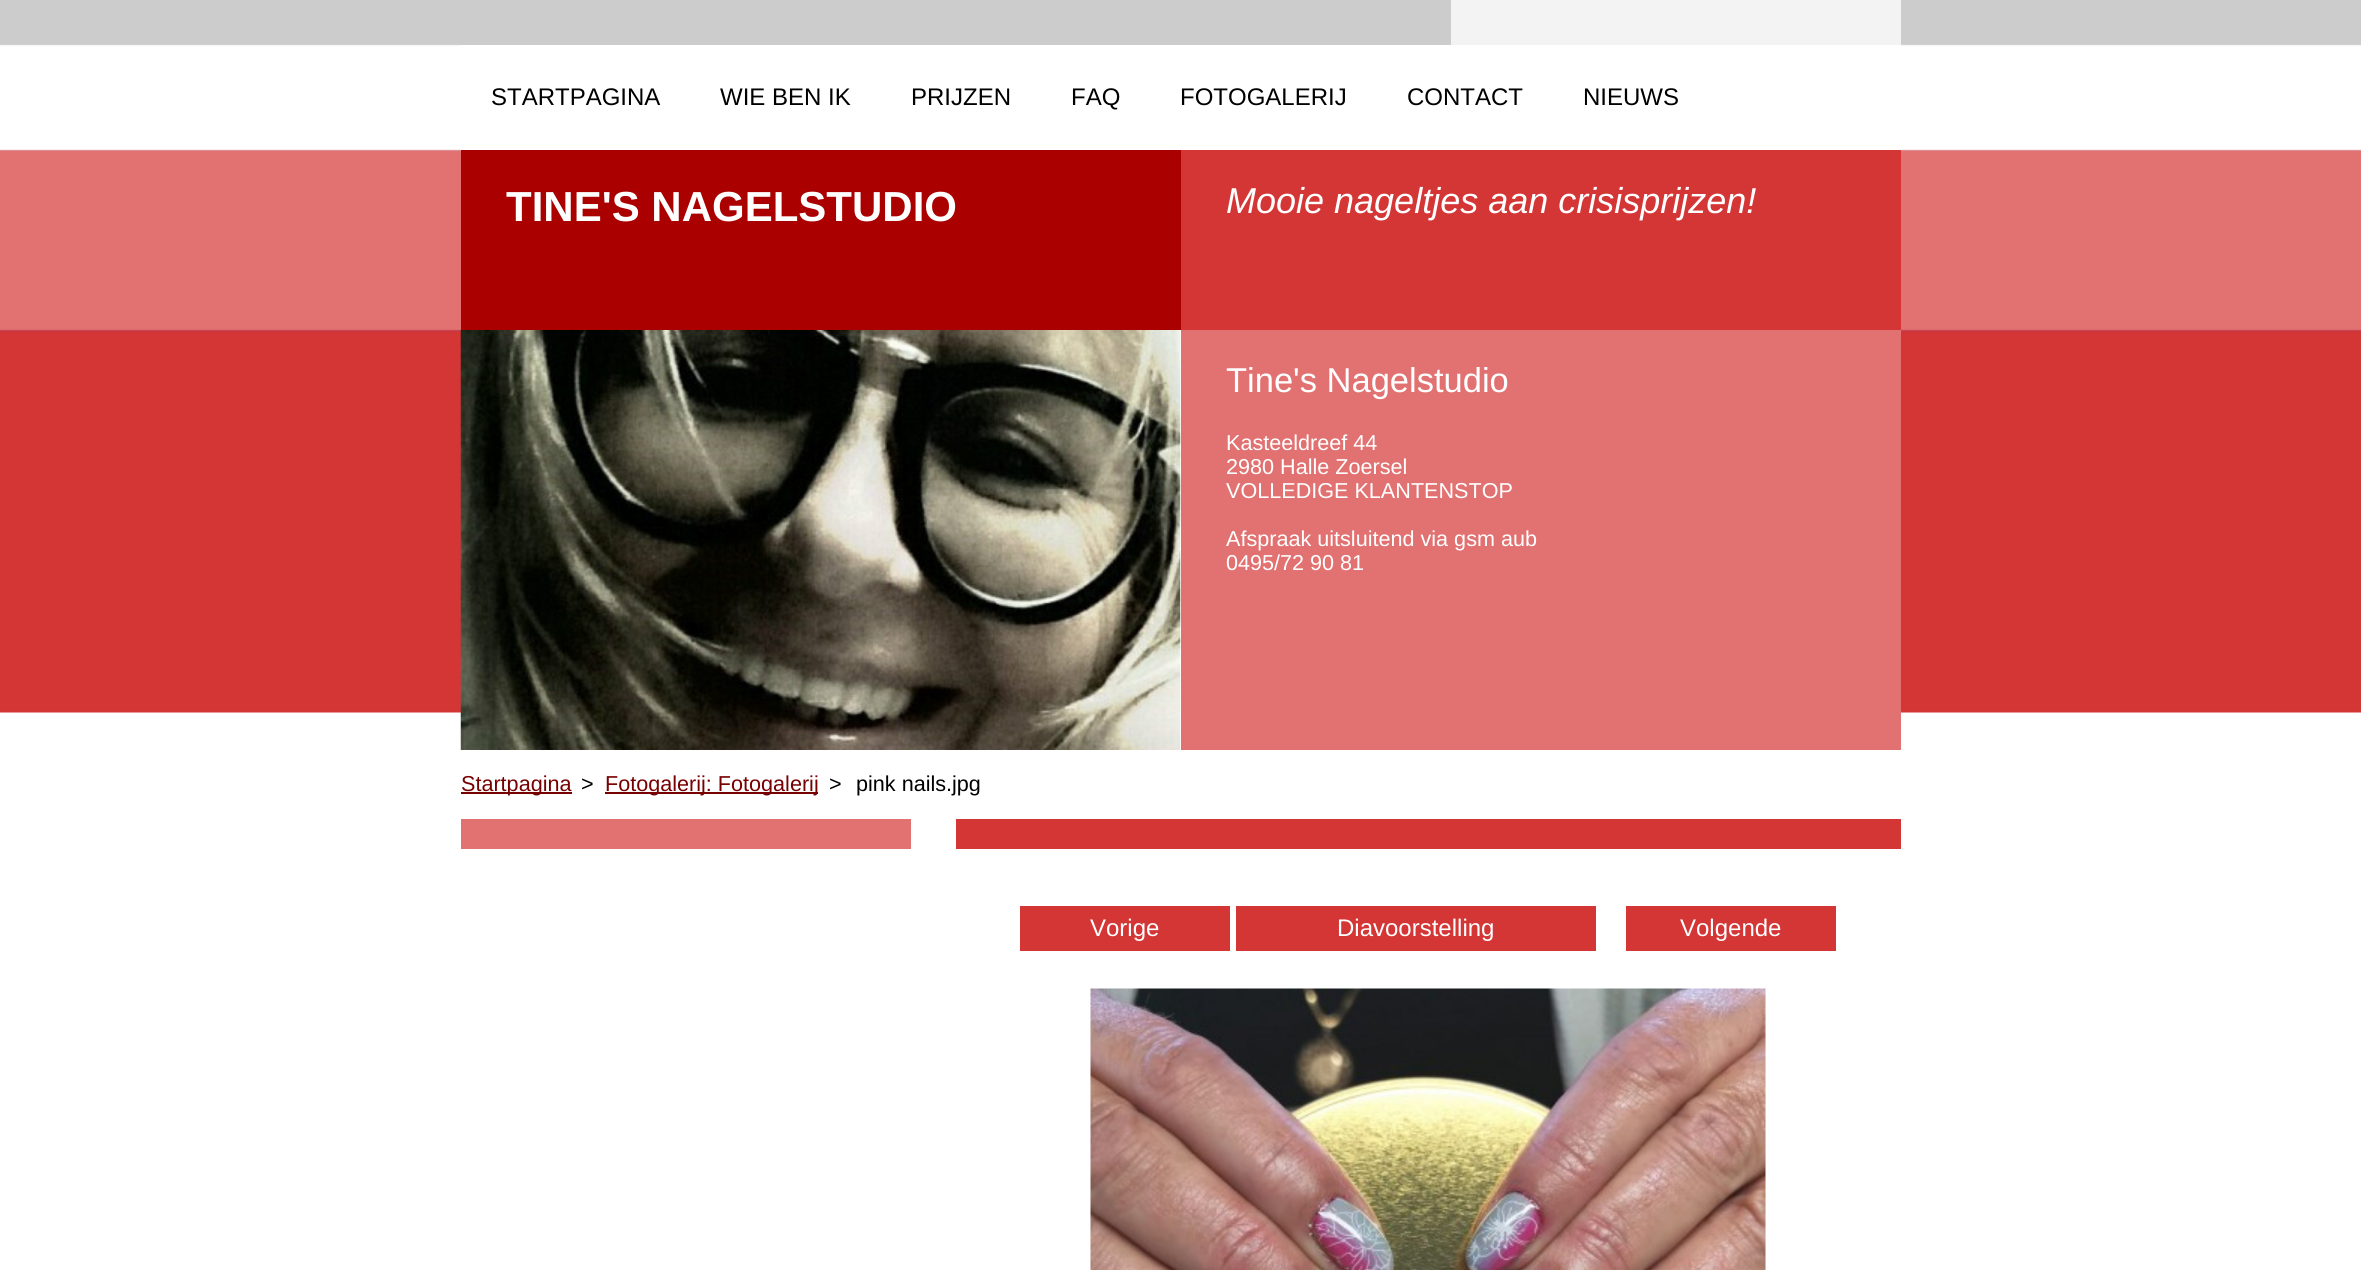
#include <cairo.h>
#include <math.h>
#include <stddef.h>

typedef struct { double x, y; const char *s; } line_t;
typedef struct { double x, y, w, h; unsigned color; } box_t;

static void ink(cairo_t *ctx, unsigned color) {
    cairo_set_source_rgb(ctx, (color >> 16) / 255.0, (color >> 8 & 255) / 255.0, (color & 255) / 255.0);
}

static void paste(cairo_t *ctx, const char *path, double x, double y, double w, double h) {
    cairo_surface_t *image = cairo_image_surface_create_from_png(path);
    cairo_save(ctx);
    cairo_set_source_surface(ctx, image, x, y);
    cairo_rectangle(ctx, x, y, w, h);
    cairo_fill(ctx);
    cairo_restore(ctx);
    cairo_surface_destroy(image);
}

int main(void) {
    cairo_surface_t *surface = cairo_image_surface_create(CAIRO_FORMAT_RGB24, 2361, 1270);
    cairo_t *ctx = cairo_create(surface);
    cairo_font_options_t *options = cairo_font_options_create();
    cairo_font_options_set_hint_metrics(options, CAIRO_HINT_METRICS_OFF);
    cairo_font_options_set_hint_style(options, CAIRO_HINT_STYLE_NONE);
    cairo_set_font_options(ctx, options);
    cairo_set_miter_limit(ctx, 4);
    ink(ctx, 0xFFFFFF);
    cairo_paint(ctx);
    paste(ctx, "media/1.png", 0, 0, 2361, 713);
    {
        static const box_t items[] = {
            {461, 44, 990, 1, 0xCCCCCC},
            {1451, 0, 450, 45, 0xF3F3F3},
            {461, 45, 1440, 105, 0xFFFFFF},
        };
        for (size_t i = 0; i < sizeof items / sizeof *items; i++) {
            ink(ctx, items[i].color);
            cairo_rectangle(ctx, items[i].x, items[i].y, items[i].w, items[i].h);
            cairo_fill(ctx);
        }
    }
    cairo_select_font_face(ctx, "Liberation Sans", CAIRO_FONT_SLANT_NORMAL, CAIRO_FONT_WEIGHT_NORMAL);
    cairo_set_font_size(ctx, 24);
    ink(ctx, 0x000000);
    {
        static const line_t items[] = {
            {491, 105, "STARTPAGINA"},
            {720, 105, "WIE BEN IK"},
            {911, 105, "PRIJZEN"},
            {1071, 105, "FAQ"},
            {1180, 105, "FOTOGALERIJ"},
            {1407, 105, "CONTACT"},
            {1583, 105, "NIEUWS"},
        };
        for (size_t i = 0; i < sizeof items / sizeof *items; i++) {
            cairo_move_to(ctx, items[i].x, items[i].y);
            cairo_show_text(ctx, items[i].s);
        }
    }
    ink(ctx, 0xAA0000);
    cairo_rectangle(ctx, 461, 150, 720, 180);
    cairo_fill(ctx);
    cairo_select_font_face(ctx, "Liberation Sans", CAIRO_FONT_SLANT_NORMAL, CAIRO_FONT_WEIGHT_BOLD);
    cairo_set_font_size(ctx, 42);
    ink(ctx, 0xFFFFFF);
    cairo_move_to(ctx, 506, 221);
    cairo_show_text(ctx, "TINE'S NAGELSTUDIO");
    ink(ctx, 0xD43535);
    cairo_rectangle(ctx, 1181, 150, 720, 180);
    cairo_fill(ctx);
    cairo_select_font_face(ctx, "Liberation Sans", CAIRO_FONT_SLANT_ITALIC, CAIRO_FONT_WEIGHT_NORMAL);
    cairo_set_font_size(ctx, 36);
    ink(ctx, 0xFFFFFF);
    cairo_move_to(ctx, 1226, 213);
    cairo_show_text(ctx, "Mooie nageltjes aan crisisprijzen!");
    cairo_rectangle(ctx, 1180, 330, 1, 383);
    cairo_fill(ctx);
    paste(ctx, "media/2.png", 460, 330, 721, 420);
    ink(ctx, 0xE27171);
    cairo_rectangle(ctx, 1181, 330, 720, 420);
    cairo_fill(ctx);
    cairo_select_font_face(ctx, "Liberation Sans", CAIRO_FONT_SLANT_NORMAL, CAIRO_FONT_WEIGHT_NORMAL);
    cairo_set_font_size(ctx, 34.5);
    ink(ctx, 0xFFFFFF);
    cairo_move_to(ctx, 1226, 392);
    cairo_show_text(ctx, "Tine's Nagelstudio");
    cairo_set_font_size(ctx, 21.6);
    {
        static const line_t items[] = {
            {1226, 450, "Kasteeldreef 44"},
            {1226, 474, "2980 Halle Zoersel"},
            {1226, 498, "VOLLEDIGE KLANTENSTOP"},
            {1226, 546, "Afspraak uitsluitend via gsm aub"},
            {1226, 570, "0495/72 90 81"},
        };
        for (size_t i = 0; i < sizeof items / sizeof *items; i++) {
            cairo_move_to(ctx, items[i].x, items[i].y);
            cairo_show_text(ctx, items[i].s);
        }
    }
    ink(ctx, 0x770000);
    cairo_rectangle(ctx, 461, 792, 111, 2);
    cairo_fill(ctx);
    cairo_move_to(ctx, 461, 791);
    cairo_show_text(ctx, "Startpagina");
    ink(ctx, 0x000000);
    cairo_move_to(ctx, 581, 791);
    cairo_show_text(ctx, ">");
    ink(ctx, 0x770000);
    cairo_rectangle(ctx, 605, 792, 213, 2);
    cairo_fill(ctx);
    cairo_move_to(ctx, 605, 791);
    cairo_show_text(ctx, "Fotogalerij: Fotogalerij");
    ink(ctx, 0x000000);
    cairo_move_to(ctx, 829, 791);
    cairo_show_text(ctx, ">");
    cairo_move_to(ctx, 856, 791);
    cairo_show_text(ctx, "pink nails.jpg");
    {
        static const box_t items[] = {
            {461, 819, 450, 30, 0xE27171},
            {956, 819, 945, 30, 0xD43535},
            {1020, 906, 210, 45, 0xD43535},
        };
        for (size_t i = 0; i < sizeof items / sizeof *items; i++) {
            ink(ctx, items[i].color);
            cairo_rectangle(ctx, items[i].x, items[i].y, items[i].w, items[i].h);
            cairo_fill(ctx);
        }
    }
    cairo_set_font_size(ctx, 24);
    ink(ctx, 0xFFFFFF);
    cairo_move_to(ctx, 1090, 936);
    cairo_show_text(ctx, "Vorige");
    ink(ctx, 0xD43535);
    cairo_rectangle(ctx, 1236, 906, 360, 45);
    cairo_fill(ctx);
    ink(ctx, 0xFFFFFF);
    cairo_move_to(ctx, 1337, 936);
    cairo_show_text(ctx, "Diavoorstelling");
    ink(ctx, 0xD43535);
    cairo_rectangle(ctx, 1626, 906, 210, 45);
    cairo_fill(ctx);
    ink(ctx, 0xFFFFFF);
    cairo_move_to(ctx, 1680, 936);
    cairo_show_text(ctx, "Volgende");
    paste(ctx, "media/3.png", 1090, 988, 676, 282);
    cairo_surface_write_to_png(surface, "image.png");
    cairo_font_options_destroy(options);
    cairo_destroy(ctx);
    cairo_surface_destroy(surface);
    return 0;
}
